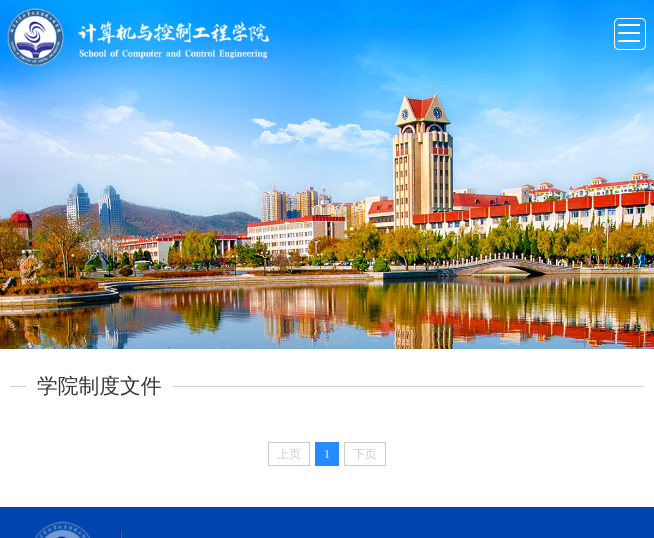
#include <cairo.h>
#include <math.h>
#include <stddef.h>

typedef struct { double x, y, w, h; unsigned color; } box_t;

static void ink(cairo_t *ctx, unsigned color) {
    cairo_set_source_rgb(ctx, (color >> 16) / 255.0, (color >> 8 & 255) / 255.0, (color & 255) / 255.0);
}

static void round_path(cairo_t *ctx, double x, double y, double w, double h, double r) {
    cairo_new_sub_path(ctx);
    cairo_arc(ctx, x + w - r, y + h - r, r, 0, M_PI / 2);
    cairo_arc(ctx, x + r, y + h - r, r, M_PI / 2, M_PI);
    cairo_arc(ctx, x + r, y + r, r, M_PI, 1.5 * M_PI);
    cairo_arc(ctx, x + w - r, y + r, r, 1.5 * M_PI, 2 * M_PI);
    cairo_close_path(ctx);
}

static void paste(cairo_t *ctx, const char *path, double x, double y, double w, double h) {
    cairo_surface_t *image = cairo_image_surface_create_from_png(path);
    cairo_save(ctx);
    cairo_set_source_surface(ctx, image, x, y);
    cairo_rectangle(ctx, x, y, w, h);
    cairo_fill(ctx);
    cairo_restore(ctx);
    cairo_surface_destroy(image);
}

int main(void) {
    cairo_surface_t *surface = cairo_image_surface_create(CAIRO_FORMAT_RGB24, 654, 538);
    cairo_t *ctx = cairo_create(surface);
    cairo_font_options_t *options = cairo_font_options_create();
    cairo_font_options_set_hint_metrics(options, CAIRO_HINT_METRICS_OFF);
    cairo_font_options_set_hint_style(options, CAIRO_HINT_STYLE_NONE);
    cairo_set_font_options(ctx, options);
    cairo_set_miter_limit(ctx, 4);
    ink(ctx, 0xFFFFFF);
    cairo_paint(ctx);
    paste(ctx, "media/1.png", 0, 0, 654, 349);
    paste(ctx, "media/2.png", 7, 8, 263, 58);
    round_path(ctx, 614.5, 18.5, 31, 31, 4.5);
    ink(ctx, 0xFFFFFF);
    cairo_set_line_width(ctx, 1);
    cairo_stroke(ctx);
    round_path(ctx, 618, 24, 22, 2, 1);
    cairo_fill(ctx);
    cairo_rectangle(ctx, 639, 25, 1, 1);
    cairo_fill(ctx);
    round_path(ctx, 618, 32, 22, 2, 1);
    cairo_fill(ctx);
    cairo_rectangle(ctx, 639, 33, 1, 1);
    cairo_fill(ctx);
    round_path(ctx, 618, 40, 22, 2, 1);
    cairo_fill(ctx);
    {
        static const box_t items[] = {
            {639, 41, 1, 1, 0xFFFFFF},
            {10, 386, 634, 1, 0xCECECE},
            {26, 386, 147, 1, 0xFFFFFF},
        };
        for (size_t i = 0; i < sizeof items / sizeof *items; i++) {
            ink(ctx, items[i].color);
            cairo_rectangle(ctx, items[i].x, items[i].y, items[i].w, items[i].h);
            cairo_fill(ctx);
        }
    }
    cairo_select_font_face(ctx, "WenQuanYi Zen Hei Medium", CAIRO_FONT_SLANT_NORMAL, CAIRO_FONT_WEIGHT_NORMAL);
    cairo_set_font_size(ctx, 20.75);
    ink(ctx, 0x333333);
    cairo_move_to(ctx, 37, 393);
    cairo_show_text(ctx, "学院制度文件");
    cairo_rectangle(ctx, 268.5, 442.5, 41, 23);
    ink(ctx, 0xCCCCCC);
    cairo_stroke(ctx);
    cairo_set_font_size(ctx, 12);
    cairo_move_to(ctx, 277, 458);
    cairo_show_text(ctx, "上页");
    ink(ctx, 0x258CFF);
    cairo_rectangle(ctx, 315, 442, 24, 24);
    cairo_fill(ctx);
    cairo_select_font_face(ctx, "Liberation Serif", CAIRO_FONT_SLANT_NORMAL, CAIRO_FONT_WEIGHT_NORMAL);
    ink(ctx, 0xFFFFFF);
    cairo_move_to(ctx, 324, 458);
    cairo_show_text(ctx, "1");
    cairo_rectangle(ctx, 344.5, 442.5, 41, 23);
    ink(ctx, 0xCCCCCC);
    cairo_stroke(ctx);
    cairo_select_font_face(ctx, "WenQuanYi Zen Hei Medium", CAIRO_FONT_SLANT_NORMAL, CAIRO_FONT_WEIGHT_NORMAL);
    cairo_move_to(ctx, 353, 458);
    cairo_show_text(ctx, "下页");
    ink(ctx, 0x0044AF);
    cairo_rectangle(ctx, 0, 507, 654, 31);
    cairo_fill(ctx);
    paste(ctx, "media/3.png", 120, 530, 2, 8);
    paste(ctx, "media/4.png", 34, 521, 57, 17);
    cairo_surface_write_to_png(surface, "image.png");
    cairo_font_options_destroy(options);
    cairo_destroy(ctx);
    cairo_surface_destroy(surface);
    return 0;
}
